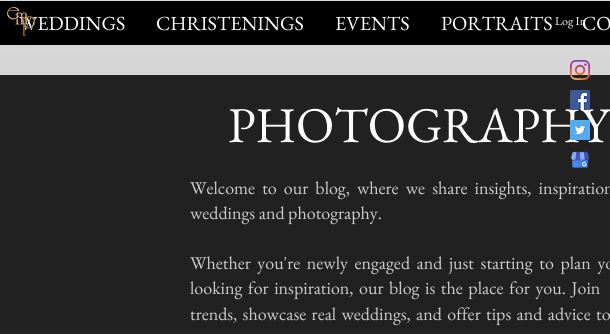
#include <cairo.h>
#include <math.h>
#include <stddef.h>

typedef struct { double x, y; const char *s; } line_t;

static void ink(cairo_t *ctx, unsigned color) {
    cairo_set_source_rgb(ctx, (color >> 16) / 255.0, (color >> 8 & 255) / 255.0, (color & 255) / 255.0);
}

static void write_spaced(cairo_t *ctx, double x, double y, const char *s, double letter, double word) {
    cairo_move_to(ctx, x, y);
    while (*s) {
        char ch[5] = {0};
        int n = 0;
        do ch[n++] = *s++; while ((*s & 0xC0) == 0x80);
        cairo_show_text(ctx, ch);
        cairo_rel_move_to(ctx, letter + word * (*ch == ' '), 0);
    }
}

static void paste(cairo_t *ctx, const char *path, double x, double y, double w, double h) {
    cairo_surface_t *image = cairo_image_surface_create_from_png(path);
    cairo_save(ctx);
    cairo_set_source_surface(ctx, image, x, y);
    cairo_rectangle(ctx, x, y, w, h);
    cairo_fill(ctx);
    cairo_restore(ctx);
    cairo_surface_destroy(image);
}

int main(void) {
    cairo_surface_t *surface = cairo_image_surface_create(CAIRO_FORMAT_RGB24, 610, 334);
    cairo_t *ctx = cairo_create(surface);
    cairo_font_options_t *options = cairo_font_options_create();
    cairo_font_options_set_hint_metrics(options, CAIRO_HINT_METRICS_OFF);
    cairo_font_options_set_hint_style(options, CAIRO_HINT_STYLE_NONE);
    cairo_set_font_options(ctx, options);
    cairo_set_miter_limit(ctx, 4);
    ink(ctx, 0x212121);
    cairo_paint(ctx);
    ink(ctx, 0xCCCCCC);
    cairo_rectangle(ctx, 0, 0, 610, 75);
    cairo_fill(ctx);
    paste(ctx, "media/2.png", 0, 0, 610, 75);
    ink(ctx, 0x000000);
    cairo_rectangle(ctx, 0, 1, 610, 44);
    cairo_fill(ctx);
    cairo_select_font_face(ctx, "EB Garamond", CAIRO_FONT_SLANT_NORMAL, CAIRO_FONT_WEIGHT_NORMAL);
    cairo_set_font_size(ctx, 20);
    ink(ctx, 0xFFFFFF);
    cairo_move_to(ctx, 19, 30);
    cairo_show_text(ctx, "WEDDINGS");
    paste(ctx, "media/1.png", 7, 7, 29, 29);
    {
        static const line_t items[] = {
            {156, 30, "CHRISTENINGS"},
            {335, 30, "EVENTS"},
            {441, 30, "PORTRAITS"},
            {582, 30, "CO"},
        };
        for (size_t i = 0; i < sizeof items / sizeof *items; i++) {
            cairo_move_to(ctx, items[i].x, items[i].y);
            cairo_show_text(ctx, items[i].s);
        }
    }
    cairo_set_font_size(ctx, 12);
    cairo_move_to(ctx, 555, 25);
    cairo_show_text(ctx, "Log In");
    paste(ctx, "media/3.png", 570, 60, 20, 20);
    cairo_set_font_size(ctx, 50);
    cairo_move_to(ctx, 228, 142);
    cairo_show_text(ctx, "PHOTOGRAPHY");
    paste(ctx, "media/4.png", 570, 90, 20, 20);
    paste(ctx, "media/5.png", 570, 120, 20, 20);
    paste(ctx, "media/6.png", 571, 151, 19, 17);
    cairo_set_font_size(ctx, 18);
    ink(ctx, 0xCCCCCC);
    write_spaced(ctx, 190, 194, "Welcome to our blog, where we share insights, inspiration", 0, 3.5);
    cairo_move_to(ctx, 190, 219);
    cairo_show_text(ctx, "weddings and photography.");
    write_spaced(ctx, 190, 269, "Whether you're newly engaged and just starting to plan yo", 0, 3);
    write_spaced(ctx, 190, 294, "looking for inspiration, our blog is the place for you. Join", 0, 2);
    write_spaced(ctx, 190, 320, "trends, showcase real weddings, and offer tips and advice to", 0, 1.75);
    cairo_surface_write_to_png(surface, "image.png");
    cairo_font_options_destroy(options);
    cairo_destroy(ctx);
    cairo_surface_destroy(surface);
    return 0;
}
